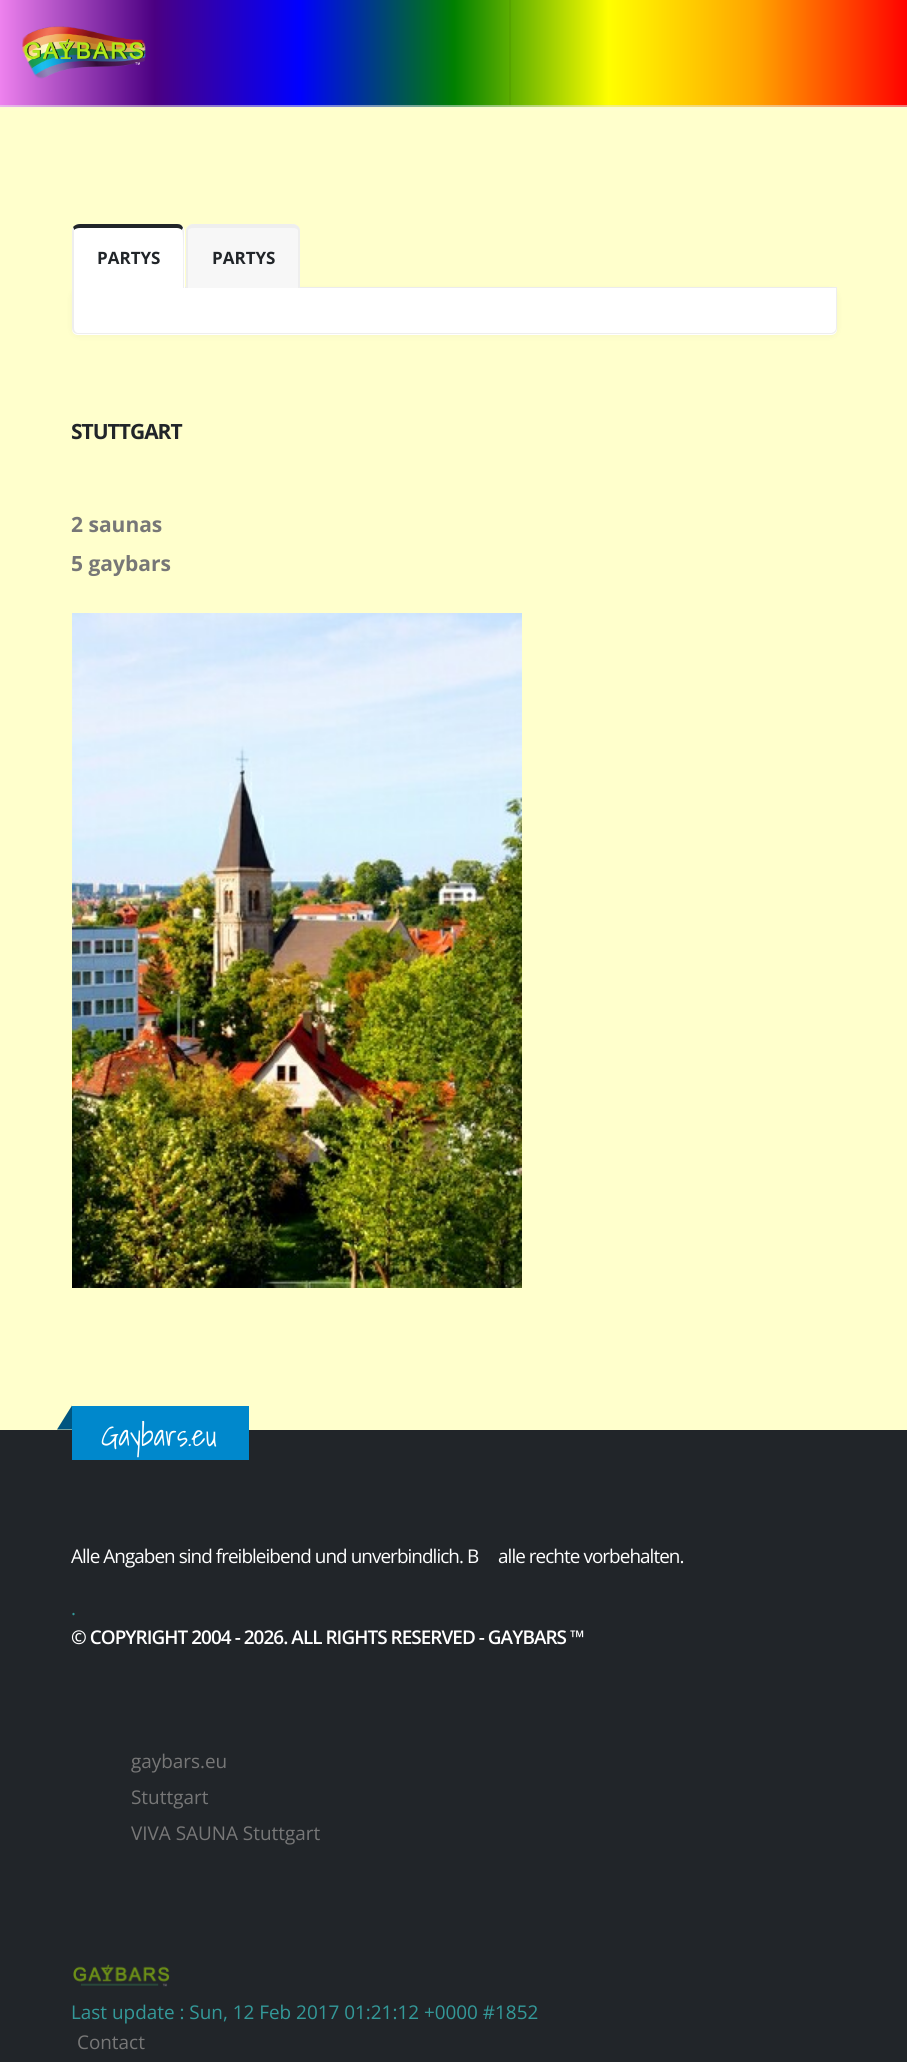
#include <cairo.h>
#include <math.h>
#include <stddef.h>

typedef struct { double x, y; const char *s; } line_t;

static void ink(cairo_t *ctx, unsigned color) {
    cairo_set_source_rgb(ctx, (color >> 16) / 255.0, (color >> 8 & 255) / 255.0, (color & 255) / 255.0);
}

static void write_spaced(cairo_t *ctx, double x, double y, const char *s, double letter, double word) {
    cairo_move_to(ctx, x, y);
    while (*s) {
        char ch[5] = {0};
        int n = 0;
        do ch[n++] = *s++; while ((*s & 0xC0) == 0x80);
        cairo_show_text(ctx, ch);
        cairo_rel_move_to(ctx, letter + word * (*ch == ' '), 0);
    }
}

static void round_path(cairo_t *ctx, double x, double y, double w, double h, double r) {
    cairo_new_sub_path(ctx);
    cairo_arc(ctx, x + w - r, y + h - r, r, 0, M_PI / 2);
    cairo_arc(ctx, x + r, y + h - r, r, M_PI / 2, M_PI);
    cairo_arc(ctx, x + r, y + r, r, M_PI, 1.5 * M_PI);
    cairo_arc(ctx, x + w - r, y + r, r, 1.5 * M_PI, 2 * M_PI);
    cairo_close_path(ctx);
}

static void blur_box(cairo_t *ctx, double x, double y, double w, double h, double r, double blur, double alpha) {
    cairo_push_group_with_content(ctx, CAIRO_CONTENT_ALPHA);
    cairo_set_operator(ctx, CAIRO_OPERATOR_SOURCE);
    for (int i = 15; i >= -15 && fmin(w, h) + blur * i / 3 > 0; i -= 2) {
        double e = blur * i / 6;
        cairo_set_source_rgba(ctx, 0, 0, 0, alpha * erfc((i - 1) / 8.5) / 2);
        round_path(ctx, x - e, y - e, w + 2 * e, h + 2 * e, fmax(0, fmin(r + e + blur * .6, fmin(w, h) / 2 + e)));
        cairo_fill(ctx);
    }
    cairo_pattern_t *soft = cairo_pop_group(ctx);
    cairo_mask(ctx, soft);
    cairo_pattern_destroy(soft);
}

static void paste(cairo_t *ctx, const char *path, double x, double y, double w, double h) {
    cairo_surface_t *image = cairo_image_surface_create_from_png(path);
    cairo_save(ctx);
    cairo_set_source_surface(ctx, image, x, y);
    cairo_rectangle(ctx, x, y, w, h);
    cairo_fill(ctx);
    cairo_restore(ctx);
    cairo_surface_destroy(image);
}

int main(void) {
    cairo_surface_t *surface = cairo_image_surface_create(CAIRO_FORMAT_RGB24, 907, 2062);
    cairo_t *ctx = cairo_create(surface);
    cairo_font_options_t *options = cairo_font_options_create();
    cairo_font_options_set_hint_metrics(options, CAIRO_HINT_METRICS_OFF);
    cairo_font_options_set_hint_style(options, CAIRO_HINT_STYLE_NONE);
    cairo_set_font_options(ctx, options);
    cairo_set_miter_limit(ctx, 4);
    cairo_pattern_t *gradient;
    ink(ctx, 0xFFFFCC);
    cairo_paint(ctx);
    ink(ctx, 0xEAEAEA);
    blur_box(ctx, 0, 0, 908, 107, 0, 2, 0.5);
    gradient = cairo_pattern_create_linear(0, 53, 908, 52);
    cairo_pattern_add_color_stop_rgba(gradient, 0, 0.933, 0.51, 0.933, 1);
    cairo_pattern_add_color_stop_rgba(gradient, 0.17, 0.294, 0, 0.51, 1);
    cairo_pattern_add_color_stop_rgba(gradient, 0.33, 0, 0, 1, 1);
    cairo_pattern_add_color_stop_rgba(gradient, 0.5, 0, 0.502, 0, 1);
    cairo_pattern_add_color_stop_rgba(gradient, 0.67, 1, 1, 0, 1);
    cairo_pattern_add_color_stop_rgba(gradient, 0.83, 1, 0.647, 0, 1);
    cairo_pattern_add_color_stop_rgba(gradient, 1, 1, 0, 0, 1);
    cairo_set_source(ctx, gradient);
    cairo_pattern_destroy(gradient);
    cairo_rectangle(ctx, 0, 0, 907, 107);
    cairo_fill(ctx);
    cairo_set_source_rgba(ctx, 0.918, 0.918, 0.918, 0.5);
    cairo_rectangle(ctx, 0, 105, 907, 2);
    cairo_fill(ctx);
    ink(ctx, 0x57A400);
    cairo_rectangle(ctx, 509, 0, 2, 105);
    cairo_fill(ctx);
    paste(ctx, "media/1.png", 22, 26, 124, 53);
    ink(ctx, 0xEEEEEE);
    cairo_rectangle(ctx, 185, 287, 652, 1);
    cairo_fill(ctx);
    ink(ctx, 0x000000);
    blur_box(ctx, 72, 290, 765, 46, 6, 4, 0.04);
    ink(ctx, 0xFFFFFF);
    cairo_new_path(ctx);
    cairo_move_to(ctx, 80, 224);
    cairo_line_to(ctx, 177, 224);
    cairo_curve_to(ctx, 181.5, 224, 185, 227.5, 185, 232);
    cairo_line_to(ctx, 185, 288);
    cairo_line_to(ctx, 72, 288);
    cairo_line_to(ctx, 72, 232);
    cairo_curve_to(ctx, 72, 227.5, 75.5, 224, 80, 224);
    cairo_close_path(ctx);
    cairo_fill(ctx);
    ink(ctx, 0x212529);
    cairo_new_path(ctx);
    cairo_move_to(ctx, 80, 224);
    cairo_line_to(ctx, 177, 224);
    cairo_curve_to(ctx, 180, 224, 182, 225, 183, 228);
    cairo_line_to(ctx, 182, 230);
    cairo_curve_to(ctx, 181, 229, 179, 228, 177, 228);
    cairo_line_to(ctx, 80, 228);
    cairo_curve_to(ctx, 77, 228, 75, 229, 74, 230);
    cairo_line_to(ctx, 73, 227);
    cairo_curve_to(ctx, 75, 225, 77, 224, 80, 224);
    cairo_close_path(ctx);
    cairo_fill(ctx);
    ink(ctx, 0xEEEEEE);
    cairo_new_path(ctx);
    cairo_move_to(ctx, 183, 288);
    cairo_curve_to(ctx, 183, 282, 184, 231, 182, 230);
    cairo_line_to(ctx, 183, 228);
    cairo_line_to(ctx, 184, 231);
    cairo_line_to(ctx, 184, 288);
    cairo_close_path(ctx);
    cairo_fill(ctx);
    cairo_new_path(ctx);
    cairo_move_to(ctx, 72, 288);
    cairo_line_to(ctx, 74, 288);
    cairo_line_to(ctx, 74, 230);
    cairo_line_to(ctx, 73, 227);
    cairo_line_to(ctx, 72, 231);
    cairo_close_path(ctx);
    cairo_fill(ctx);
    cairo_select_font_face(ctx, "Open Sans", CAIRO_FONT_SLANT_NORMAL, CAIRO_FONT_WEIGHT_BOLD);
    cairo_set_font_size(ctx, 17);
    ink(ctx, 0x212529);
    cairo_move_to(ctx, 97, 264);
    cairo_show_text(ctx, "PARTYS");
    ink(ctx, 0xF7F7F7);
    cairo_new_path(ctx);
    cairo_move_to(ctx, 194, 224);
    cairo_line_to(ctx, 292, 224);
    cairo_curve_to(ctx, 296.5, 224, 300, 227.5, 300, 232);
    cairo_line_to(ctx, 300, 288);
    cairo_line_to(ctx, 186, 288);
    cairo_line_to(ctx, 186, 232);
    cairo_curve_to(ctx, 186, 227.5, 189.5, 224, 194, 224);
    cairo_close_path(ctx);
    cairo_fill(ctx);
    ink(ctx, 0xEEEEEE);
    cairo_set_fill_rule(ctx, CAIRO_FILL_RULE_EVEN_ODD);
    cairo_new_path(ctx);
    cairo_move_to(ctx, 194, 224);
    cairo_line_to(ctx, 292, 224);
    cairo_curve_to(ctx, 297, 224, 300, 227, 300, 231);
    cairo_line_to(ctx, 300, 288);
    cairo_line_to(ctx, 186, 288);
    cairo_line_to(ctx, 186, 231);
    cairo_curve_to(ctx, 186, 227, 189, 224, 194, 224);
    cairo_close_path(ctx);
    cairo_move_to(ctx, 194, 228);
    cairo_line_to(ctx, 292, 228);
    cairo_curve_to(ctx, 296, 228, 298, 229, 298, 231);
    cairo_line_to(ctx, 298, 288);
    cairo_line_to(ctx, 188, 288);
    cairo_line_to(ctx, 188, 231);
    cairo_curve_to(ctx, 188, 229, 190, 228, 194, 228);
    cairo_close_path(ctx);
    cairo_fill(ctx);
    ink(ctx, 0x212529);
    cairo_move_to(ctx, 212, 264);
    cairo_show_text(ctx, "PARTYS");
    ink(ctx, 0xFFFFFF);
    cairo_new_path(ctx);
    cairo_move_to(ctx, 72, 288);
    cairo_line_to(ctx, 837, 288);
    cairo_line_to(ctx, 837, 329);
    cairo_curve_to(ctx, 837, 332.5, 834.5, 335, 831, 335);
    cairo_line_to(ctx, 78, 335);
    cairo_curve_to(ctx, 74.5, 335, 72, 332.5, 72, 329);
    cairo_close_path(ctx);
    cairo_fill(ctx);
    ink(ctx, 0xEEEEEE);
    cairo_new_path(ctx);
    cairo_move_to(ctx, 72, 288);
    cairo_line_to(ctx, 837, 288);
    cairo_line_to(ctx, 837, 328);
    cairo_curve_to(ctx, 837, 332, 834, 334, 831, 334);
    cairo_line_to(ctx, 78, 334);
    cairo_curve_to(ctx, 75, 334, 72, 332, 72, 328);
    cairo_close_path(ctx);
    cairo_move_to(ctx, 74, 288);
    cairo_line_to(ctx, 836, 288);
    cairo_line_to(ctx, 836, 328);
    cairo_curve_to(ctx, 836, 331, 833, 333, 831, 333);
    cairo_line_to(ctx, 78, 333);
    cairo_curve_to(ctx, 76, 333, 74, 331, 74, 328);
    cairo_close_path(ctx);
    cairo_fill(ctx);
    cairo_set_font_size(ctx, 21);
    ink(ctx, 0x212529);
    write_spaced(ctx, 71, 439, "STUTTGART", -1, 0);
    ink(ctx, 0x777777);
    cairo_move_to(ctx, 71, 532);
    cairo_show_text(ctx, "2 saunas");
    cairo_move_to(ctx, 71, 571);
    cairo_show_text(ctx, "5 gaybars");
    paste(ctx, "media/2.png", 72, 613, 450, 675);
    ink(ctx, 0x212529);
    cairo_rectangle(ctx, 0, 1430, 907, 632);
    cairo_fill(ctx);
    ink(ctx, 0x0088CC);
    cairo_rectangle(ctx, 72, 1406, 177, 54);
    cairo_fill(ctx);
    ink(ctx, 0x005580);
    cairo_set_fill_rule(ctx, CAIRO_FILL_RULE_WINDING);
    cairo_new_path(ctx);
    cairo_move_to(ctx, 72, 1405.5);
    cairo_line_to(ctx, 72, 1429.5);
    cairo_line_to(ctx, 57, 1429.5);
    cairo_close_path(ctx);
    cairo_fill(ctx);
    cairo_select_font_face(ctx, "Shadows Into Light Light", CAIRO_FONT_SLANT_NORMAL, CAIRO_FONT_WEIGHT_NORMAL);
    cairo_set_font_size(ctx, 30);
    ink(ctx, 0xFFFFFF);
    cairo_move_to(ctx, 101, 1446);
    cairo_show_text(ctx, "Gaybars.eu");
    cairo_select_font_face(ctx, "Open Sans", CAIRO_FONT_SLANT_NORMAL, CAIRO_FONT_WEIGHT_NORMAL);
    cairo_set_font_size(ctx, 18.9);
    write_spaced(ctx, 71, 1563, "Alle Angaben sind freibleibend und unverbindlich. B     alle rechte vorbehalten.", -0.95, 0);
    ink(ctx, 0x339999);
    cairo_move_to(ctx, 71, 1615);
    cairo_show_text(ctx, ".");
    cairo_select_font_face(ctx, "Open Sans SemiBold", CAIRO_FONT_SLANT_NORMAL, CAIRO_FONT_WEIGHT_NORMAL);
    ink(ctx, 0xFFFFFF);
    write_spaced(ctx, 71, 1644, "© COPYRIGHT 2004 - 2026. ALL RIGHTS RESERVED - GAYBARS ™", -0.95, 0);
    cairo_select_font_face(ctx, "Open Sans", CAIRO_FONT_SLANT_NORMAL, CAIRO_FONT_WEIGHT_NORMAL);
    ink(ctx, 0x777777);
    {
        static const line_t items[] = {
            {131, 1768, "gaybars.eu"},
            {131, 1804, "Stuttgart"},
            {131, 1840, "VIVA SAUNA Stuttgart"},
        };
        for (size_t i = 0; i < sizeof items / sizeof *items; i++) {
            cairo_move_to(ctx, items[i].x, items[i].y);
            cairo_show_text(ctx, items[i].s);
        }
    }
    paste(ctx, "media/3.png", 73, 1964, 97, 23);
    ink(ctx, 0x339999);
    cairo_move_to(ctx, 71, 2019);
    cairo_show_text(ctx, "Last update : Sun, 12 Feb 2017 01:21:12 +0000 #1852");
    ink(ctx, 0x777777);
    cairo_move_to(ctx, 77, 2049);
    cairo_show_text(ctx, "Contact");
    cairo_surface_write_to_png(surface, "image.png");
    cairo_font_options_destroy(options);
    cairo_destroy(ctx);
    cairo_surface_destroy(surface);
    return 0;
}
